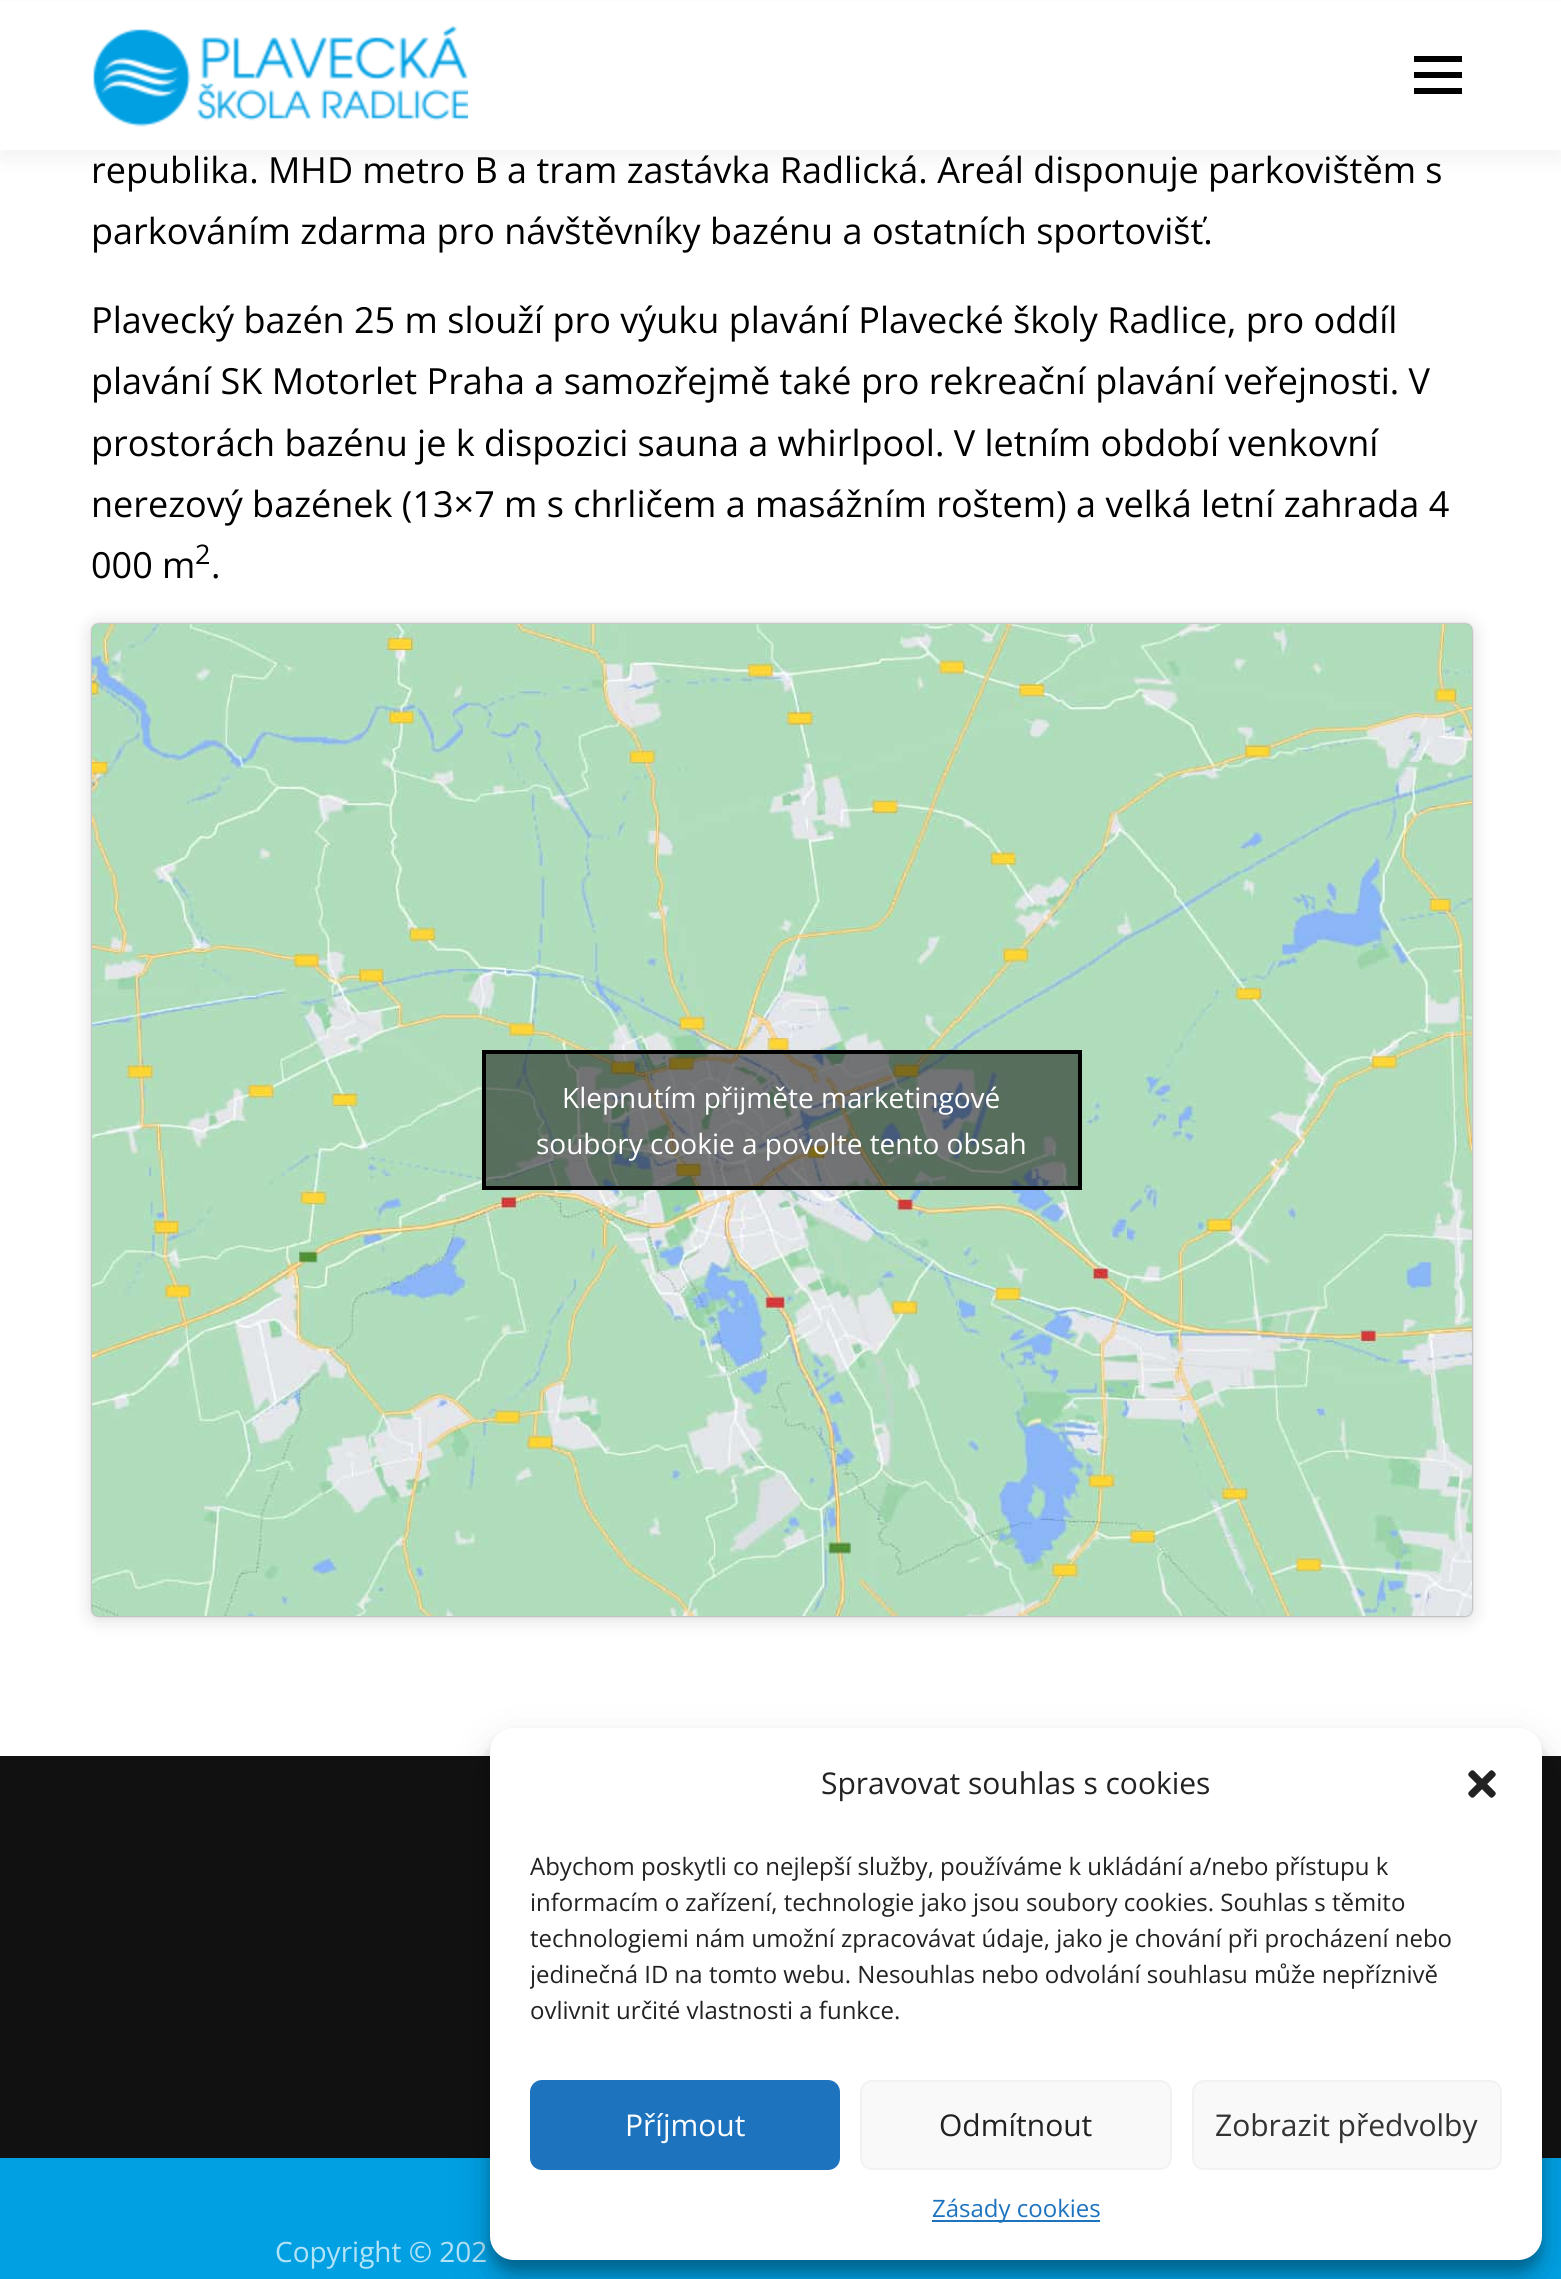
#include <cairo.h>
#include <math.h>
#include <stddef.h>

typedef struct { double x, y; const char *s; } line_t;
typedef struct { double x, y, w, h; unsigned color; } box_t;

static void ink(cairo_t *ctx, unsigned color) {
    cairo_set_source_rgb(ctx, (color >> 16) / 255.0, (color >> 8 & 255) / 255.0, (color & 255) / 255.0);
}

static void round_path(cairo_t *ctx, double x, double y, double w, double h, double r) {
    cairo_new_sub_path(ctx);
    cairo_arc(ctx, x + w - r, y + h - r, r, 0, M_PI / 2);
    cairo_arc(ctx, x + r, y + h - r, r, M_PI / 2, M_PI);
    cairo_arc(ctx, x + r, y + r, r, M_PI, 1.5 * M_PI);
    cairo_arc(ctx, x + w - r, y + r, r, 1.5 * M_PI, 2 * M_PI);
    cairo_close_path(ctx);
}

static void blur_box(cairo_t *ctx, double x, double y, double w, double h, double r, double blur, double alpha) {
    cairo_push_group_with_content(ctx, CAIRO_CONTENT_ALPHA);
    cairo_set_operator(ctx, CAIRO_OPERATOR_SOURCE);
    for (int i = 15; i >= -15 && fmin(w, h) + blur * i / 3 > 0; i -= 2) {
        double e = blur * i / 6;
        cairo_set_source_rgba(ctx, 0, 0, 0, alpha * erfc((i - 1) / 8.5) / 2);
        round_path(ctx, x - e, y - e, w + 2 * e, h + 2 * e, fmax(0, fmin(r + e + blur * .6, fmin(w, h) / 2 + e)));
        cairo_fill(ctx);
    }
    cairo_pattern_t *soft = cairo_pop_group(ctx);
    cairo_mask(ctx, soft);
    cairo_pattern_destroy(soft);
}

static void paste(cairo_t *ctx, const char *path, double x, double y, double w, double h) {
    cairo_surface_t *image = cairo_image_surface_create_from_png(path);
    cairo_save(ctx);
    cairo_set_source_surface(ctx, image, x, y);
    cairo_rectangle(ctx, x, y, w, h);
    cairo_fill(ctx);
    cairo_restore(ctx);
    cairo_surface_destroy(image);
}

int main(void) {
    cairo_surface_t *surface = cairo_image_surface_create(CAIRO_FORMAT_RGB24, 1561, 2279);
    cairo_t *ctx = cairo_create(surface);
    cairo_font_options_t *options = cairo_font_options_create();
    cairo_font_options_set_hint_metrics(options, CAIRO_HINT_METRICS_OFF);
    cairo_font_options_set_hint_style(options, CAIRO_HINT_STYLE_NONE);
    cairo_set_font_options(ctx, options);
    cairo_set_miter_limit(ctx, 4);
    ink(ctx, 0xFFFFFF);
    cairo_paint(ctx);
    ink(ctx, 0x323232);
    blur_box(ctx, 0, 10, 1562, 150, 0, 10, 0.06);
    ink(ctx, 0xFFFFFF);
    cairo_rectangle(ctx, 0, 2, 1561, 148);
    cairo_fill(ctx);
    paste(ctx, "media/1.png", 92, 26, 376, 101);
    {
        static const box_t items[] = {
            {1414, 72, 48, 6, 0x000000},
            {1414, 56, 48, 6, 0x000000},
            {1414, 88, 48, 6, 0x000000},
        };
        for (size_t i = 0; i < sizeof items / sizeof *items; i++) {
            ink(ctx, items[i].color);
            cairo_rectangle(ctx, items[i].x, items[i].y, items[i].w, items[i].h);
            cairo_fill(ctx);
        }
    }
    cairo_select_font_face(ctx, "Open Sans", CAIRO_FONT_SLANT_NORMAL, CAIRO_FONT_WEIGHT_NORMAL);
    cairo_set_font_size(ctx, 36);
    {
        static const line_t items[] = {
            {91, 183, "republika. MHD metro B a tram zastávka Radlická. Areál disponuje parkovištěm s"},
            {91, 244, "parkováním zdarma pro návštěvníky bazénu a ostatních sportovišť."},
            {91, 333, "Plavecký bazén 25 m slouží pro výuku plavání Plavecké školy Radlice, pro oddíl"},
            {91, 394, "plavání SK Motorlet Praha a samozřejmě také pro rekreační plavání veřejnosti. V"},
            {91, 456, "prostorách bazénu je k dispozici sauna a whirlpool. V letním období venkovní"},
            {91, 517, "nerezový bazének (13×7 m s chrličem a masážním roštem) a velká letní zahrada 4"},
            {91, 578, "000 m"},
        };
        for (size_t i = 0; i < sizeof items / sizeof *items; i++) {
            cairo_move_to(ctx, items[i].x, items[i].y);
            cairo_show_text(ctx, items[i].s);
        }
    }
    cairo_set_font_size(ctx, 27);
    cairo_move_to(ctx, 195, 564);
    cairo_show_text(ctx, "2");
    cairo_set_font_size(ctx, 36);
    cairo_move_to(ctx, 211, 578);
    cairo_show_text(ctx, ".");
    ink(ctx, 0x000000);
    blur_box(ctx, 92, 626, 1380, 992, 6, 10, 0.15);
    blur_box(ctx, 92, 624, 1380, 992, 6, 1, 0.5);
    paste(ctx, "media/2.png", 92, 624, 1380, 992);
    cairo_set_source_rgba(ctx, 0, 0, 0, 0.5);
    cairo_rectangle(ctx, 484, 1052, 596, 136);
    cairo_fill_preserve(ctx);
    ink(ctx, 0x000000);
    cairo_set_line_width(ctx, 4);
    cairo_stroke(ctx);
    cairo_set_font_size(ctx, 28);
    ink(ctx, 0xFFFFFF);
    cairo_move_to(ctx, 562, 1108);
    cairo_show_text(ctx, "Klepnutím přijměte marketingové");
    cairo_move_to(ctx, 536, 1154);
    cairo_show_text(ctx, "soubory cookie a povolte tento obsah");
    ink(ctx, 0x111111);
    cairo_rectangle(ctx, 0, 1756, 1561, 402);
    cairo_fill(ctx);
    ink(ctx, 0x00A0E3);
    cairo_rectangle(ctx, 0, 2158, 1561, 121);
    cairo_fill(ctx);
    ink(ctx, 0xB3E3F7);
    cairo_move_to(ctx, 275, 2262);
    cairo_show_text(ctx, "Copyright © 202");
    ink(ctx, 0x000000);
    blur_box(ctx, 490, 1740, 1052, 532, 24, 6, 0.23);
    blur_box(ctx, 490, 1748, 1052, 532, 24, 20, 0.19);
    ink(ctx, 0xFFFFFF);
    round_path(ctx, 490, 1728, 1052, 532, 24);
    cairo_fill(ctx);
    cairo_set_font_size(ctx, 30);
    ink(ctx, 0x222222);
    cairo_move_to(ctx, 821, 1794);
    cairo_show_text(ctx, "Spravovat souhlas s cookies");
    paste(ctx, "media/3.png", 1468, 1770, 28, 28);
    cairo_set_font_size(ctx, 24);
    {
        static const line_t items[] = {
            {530, 1875, "Abychom poskytli co nejlepší služby, používáme k ukládání a/nebo přístupu k"},
            {530, 1911, "informacím o zařízení, technologie jako jsou soubory cookies. Souhlas s těmito"},
            {530, 1947, "technologiemi nám umožní zpracovávat údaje, jako je chování při procházení nebo"},
        };
        for (size_t i = 0; i < sizeof items / sizeof *items; i++) {
            cairo_move_to(ctx, items[i].x, items[i].y);
            cairo_show_text(ctx, items[i].s);
        }
    }
    cairo_save(ctx);
    cairo_rectangle(ctx, 530, 1850, 972, 190);
    cairo_clip(ctx);
    cairo_move_to(ctx, 530, 1983);
    cairo_show_text(ctx, "jedinečná ID na tomto webu. Nesouhlas nebo odvolání souhlasu může nepříznivě");
    cairo_restore(ctx);
    cairo_move_to(ctx, 530, 2019);
    cairo_show_text(ctx, "ovlivnit určité vlastnosti a funkce.");
    ink(ctx, 0x1E73BE);
    round_path(ctx, 531, 2081, 308, 88, 11);
    cairo_fill_preserve(ctx);
    cairo_set_line_width(ctx, 2);
    cairo_stroke(ctx);
    cairo_set_font_size(ctx, 30);
    ink(ctx, 0xFFFFFF);
    cairo_move_to(ctx, 625, 2136);
    cairo_show_text(ctx, "Příjmout");
    ink(ctx, 0xF9F9F9);
    round_path(ctx, 861, 2081, 310, 88, 11);
    cairo_fill_preserve(ctx);
    ink(ctx, 0xF2F2F2);
    cairo_stroke(ctx);
    ink(ctx, 0x222222);
    cairo_move_to(ctx, 939, 2136);
    cairo_show_text(ctx, "Odmítnout");
    ink(ctx, 0xF9F9F9);
    round_path(ctx, 1193, 2081, 308, 88, 11);
    cairo_fill_preserve(ctx);
    ink(ctx, 0xF2F2F2);
    cairo_stroke(ctx);
    ink(ctx, 0x333333);
    cairo_move_to(ctx, 1215, 2136);
    cairo_show_text(ctx, "Zobrazit předvolby");
    ink(ctx, 0x1E73BE);
    cairo_rectangle(ctx, 932, 2220, 168, 2);
    cairo_fill(ctx);
    cairo_set_font_size(ctx, 24);
    cairo_move_to(ctx, 932, 2217);
    cairo_show_text(ctx, "Zásady cookies");
    cairo_surface_write_to_png(surface, "image.png");
    cairo_font_options_destroy(options);
    cairo_destroy(ctx);
    cairo_surface_destroy(surface);
    return 0;
}
